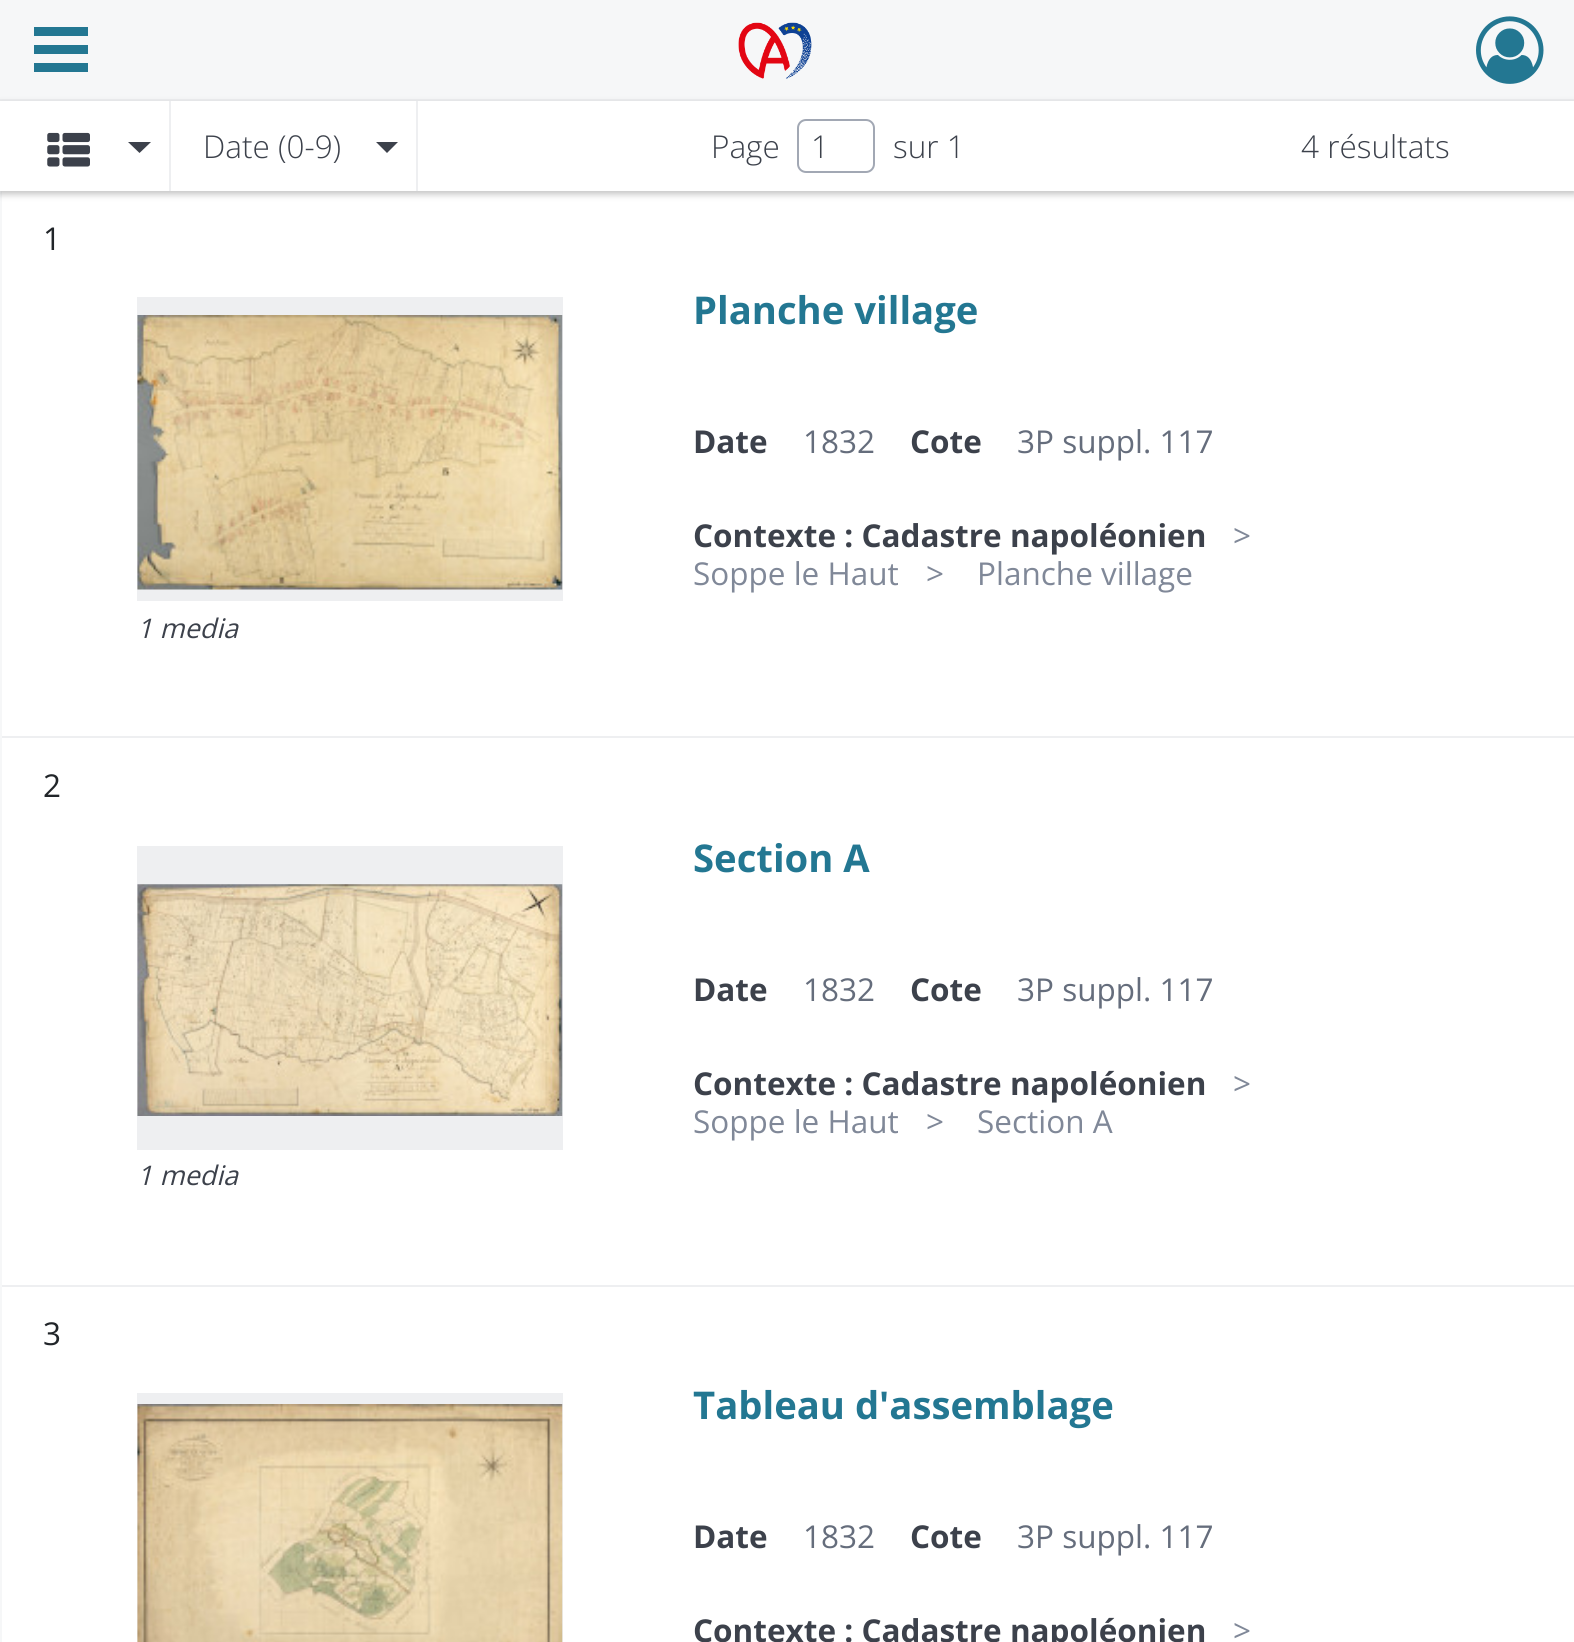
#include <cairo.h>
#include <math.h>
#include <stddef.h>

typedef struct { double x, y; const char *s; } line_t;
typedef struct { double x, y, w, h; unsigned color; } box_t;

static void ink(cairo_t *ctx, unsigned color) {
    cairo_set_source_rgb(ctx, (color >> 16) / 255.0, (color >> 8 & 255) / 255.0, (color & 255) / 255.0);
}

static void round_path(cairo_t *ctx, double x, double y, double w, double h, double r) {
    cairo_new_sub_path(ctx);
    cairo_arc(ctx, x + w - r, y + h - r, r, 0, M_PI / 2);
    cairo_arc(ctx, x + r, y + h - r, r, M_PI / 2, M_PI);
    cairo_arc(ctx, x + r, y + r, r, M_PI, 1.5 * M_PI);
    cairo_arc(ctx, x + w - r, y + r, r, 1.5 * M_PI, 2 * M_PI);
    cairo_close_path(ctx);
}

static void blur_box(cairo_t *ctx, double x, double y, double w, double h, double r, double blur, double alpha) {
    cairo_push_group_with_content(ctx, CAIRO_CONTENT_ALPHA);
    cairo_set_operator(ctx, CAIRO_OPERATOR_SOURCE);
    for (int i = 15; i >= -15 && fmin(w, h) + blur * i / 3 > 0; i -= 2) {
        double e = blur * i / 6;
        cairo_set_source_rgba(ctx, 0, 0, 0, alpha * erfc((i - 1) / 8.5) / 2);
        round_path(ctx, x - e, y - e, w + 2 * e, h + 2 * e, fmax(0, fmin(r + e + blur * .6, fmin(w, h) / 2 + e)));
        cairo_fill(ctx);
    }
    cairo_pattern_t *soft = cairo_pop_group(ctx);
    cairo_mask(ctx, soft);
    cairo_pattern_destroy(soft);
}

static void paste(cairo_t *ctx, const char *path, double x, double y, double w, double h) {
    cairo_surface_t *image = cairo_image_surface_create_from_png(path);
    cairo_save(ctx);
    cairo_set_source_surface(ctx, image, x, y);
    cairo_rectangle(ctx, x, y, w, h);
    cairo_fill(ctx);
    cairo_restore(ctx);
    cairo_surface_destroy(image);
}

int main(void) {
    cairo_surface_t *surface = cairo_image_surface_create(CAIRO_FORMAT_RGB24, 1574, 1642);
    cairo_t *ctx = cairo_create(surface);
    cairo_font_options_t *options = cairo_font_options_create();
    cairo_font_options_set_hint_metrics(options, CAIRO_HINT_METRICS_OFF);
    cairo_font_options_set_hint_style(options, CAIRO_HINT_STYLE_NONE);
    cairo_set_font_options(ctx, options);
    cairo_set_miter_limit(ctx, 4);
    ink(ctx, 0xFFFFFF);
    cairo_paint(ctx);
    {
        static const box_t items[] = {
            {0, 0, 1574, 99, 0xF6F7F8},
            {0, 99, 1574, 2, 0xEEEFF1},
            {34, 27, 54, 9, 0x237792},
            {34, 45, 54, 9, 0x237792},
            {34, 63, 54, 9, 0x237792},
        };
        for (size_t i = 0; i < sizeof items / sizeof *items; i++) {
            ink(ctx, items[i].color);
            cairo_rectangle(ctx, items[i].x, items[i].y, items[i].w, items[i].h);
            cairo_fill(ctx);
        }
    }
    paste(ctx, "media/1.png", 738, 22, 74, 57);
    paste(ctx, "media/2.png", 1476, 16, 68, 68);
    ink(ctx, 0xF6F7F8);
    cairo_rectangle(ctx, 0, 191, 2, 1451);
    cairo_fill(ctx);
    ink(ctx, 0x000000);
    blur_box(ctx, 0, 104, 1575, 90, 0, 3.5, 0.25);
    ink(ctx, 0xFFFFFF);
    cairo_rectangle(ctx, 0, 101, 1574, 90);
    cairo_fill(ctx);
    ink(ctx, 0xEEEFF1);
    cairo_rectangle(ctx, 169, 101, 2, 90);
    cairo_fill(ctx);
    paste(ctx, "media/3.png", 47, 132, 43, 35);
    ink(ctx, 0x3C414B);
    cairo_new_path(ctx);
    cairo_move_to(ctx, 128, 142);
    cairo_line_to(ctx, 151, 142);
    cairo_line_to(ctx, 139.5, 153);
    cairo_close_path(ctx);
    cairo_fill(ctx);
    ink(ctx, 0xEEEFF1);
    cairo_rectangle(ctx, 416, 101, 2, 90);
    cairo_fill(ctx);
    cairo_select_font_face(ctx, "Open Sans Light", CAIRO_FONT_SLANT_NORMAL, CAIRO_FONT_WEIGHT_NORMAL);
    cairo_set_font_size(ctx, 31.5);
    ink(ctx, 0x3C414B);
    cairo_move_to(ctx, 203, 158);
    cairo_show_text(ctx, "Date (0-9)");
    cairo_new_path(ctx);
    cairo_move_to(ctx, 376, 142);
    cairo_line_to(ctx, 398, 142);
    cairo_line_to(ctx, 387, 153);
    cairo_close_path(ctx);
    cairo_fill(ctx);
    cairo_move_to(ctx, 711, 158);
    cairo_show_text(ctx, "Page");
    round_path(ctx, 798, 120, 76, 52, 8);
    ink(ctx, 0xA2A8B4);
    cairo_stroke(ctx);
    ink(ctx, 0x3C414B);
    {
        static const line_t items[] = {
            {811, 158, "1"},
            {893, 158, "sur 1"},
            {1301, 158, "4 résultats"},
        };
        for (size_t i = 0; i < sizeof items / sizeof *items; i++) {
            cairo_move_to(ctx, items[i].x, items[i].y);
            cairo_show_text(ctx, items[i].s);
        }
    }
    ink(ctx, 0xEEEFF1);
    cairo_rectangle(ctx, 2, 736, 1572, 2);
    cairo_fill(ctx);
    cairo_select_font_face(ctx, "Open Sans", CAIRO_FONT_SLANT_NORMAL, CAIRO_FONT_WEIGHT_NORMAL);
    ink(ctx, 0x212529);
    cairo_move_to(ctx, 43, 250);
    cairo_show_text(ctx, "1");
    ink(ctx, 0xEEEFF1);
    cairo_rectangle(ctx, 137, 297, 426, 304);
    cairo_fill(ctx);
    paste(ctx, "media/4.png", 137, 315, 426, 275);
    cairo_select_font_face(ctx, "Open Sans", CAIRO_FONT_SLANT_ITALIC, CAIRO_FONT_WEIGHT_NORMAL);
    cairo_set_font_size(ctx, 27);
    ink(ctx, 0x3C414B);
    cairo_move_to(ctx, 137, 638);
    cairo_show_text(ctx, "1 media");
    cairo_select_font_face(ctx, "Open Sans", CAIRO_FONT_SLANT_NORMAL, CAIRO_FONT_WEIGHT_BOLD);
    cairo_set_font_size(ctx, 38.25);
    ink(ctx, 0x237792);
    cairo_move_to(ctx, 693, 324);
    cairo_show_text(ctx, "Planche village");
    cairo_set_font_size(ctx, 31.5);
    ink(ctx, 0x3C414B);
    cairo_move_to(ctx, 693, 453);
    cairo_show_text(ctx, "Date");
    cairo_select_font_face(ctx, "Open Sans", CAIRO_FONT_SLANT_NORMAL, CAIRO_FONT_WEIGHT_NORMAL);
    ink(ctx, 0x656D7C);
    cairo_move_to(ctx, 803, 453);
    cairo_show_text(ctx, "1832");
    cairo_select_font_face(ctx, "Open Sans", CAIRO_FONT_SLANT_NORMAL, CAIRO_FONT_WEIGHT_BOLD);
    ink(ctx, 0x3C414B);
    cairo_move_to(ctx, 910, 453);
    cairo_show_text(ctx, "Cote");
    cairo_select_font_face(ctx, "Open Sans", CAIRO_FONT_SLANT_NORMAL, CAIRO_FONT_WEIGHT_NORMAL);
    ink(ctx, 0x656D7C);
    cairo_move_to(ctx, 1017, 453);
    cairo_show_text(ctx, "3P suppl. 117");
    cairo_select_font_face(ctx, "Open Sans", CAIRO_FONT_SLANT_NORMAL, CAIRO_FONT_WEIGHT_BOLD);
    ink(ctx, 0x3C414B);
    cairo_move_to(ctx, 693, 547);
    cairo_show_text(ctx, "Contexte : Cadastre napoléonien");
    cairo_select_font_face(ctx, "Open Sans", CAIRO_FONT_SLANT_NORMAL, CAIRO_FONT_WEIGHT_NORMAL);
    ink(ctx, 0x808898);
    {
        static const line_t items[] = {
            {1233, 547, ">"},
            {693, 585, "Soppe le Haut"},
            {926, 585, ">"},
            {977, 585, "Planche village"},
        };
        for (size_t i = 0; i < sizeof items / sizeof *items; i++) {
            cairo_move_to(ctx, items[i].x, items[i].y);
            cairo_show_text(ctx, items[i].s);
        }
    }
    ink(ctx, 0xEEEFF1);
    cairo_rectangle(ctx, 2, 1285, 1572, 2);
    cairo_fill(ctx);
    ink(ctx, 0x212529);
    cairo_move_to(ctx, 43, 797);
    cairo_show_text(ctx, "2");
    ink(ctx, 0xEEEFF1);
    cairo_rectangle(ctx, 137, 846, 426, 304);
    cairo_fill(ctx);
    paste(ctx, "media/5.png", 137, 884, 426, 232);
    cairo_select_font_face(ctx, "Open Sans", CAIRO_FONT_SLANT_ITALIC, CAIRO_FONT_WEIGHT_NORMAL);
    cairo_set_font_size(ctx, 27);
    ink(ctx, 0x3C414B);
    cairo_move_to(ctx, 137, 1185);
    cairo_show_text(ctx, "1 media");
    cairo_select_font_face(ctx, "Open Sans", CAIRO_FONT_SLANT_NORMAL, CAIRO_FONT_WEIGHT_BOLD);
    cairo_set_font_size(ctx, 38.25);
    ink(ctx, 0x237792);
    cairo_move_to(ctx, 693, 872);
    cairo_show_text(ctx, "Section A");
    cairo_set_font_size(ctx, 31.5);
    ink(ctx, 0x3C414B);
    cairo_move_to(ctx, 693, 1001);
    cairo_show_text(ctx, "Date");
    cairo_select_font_face(ctx, "Open Sans", CAIRO_FONT_SLANT_NORMAL, CAIRO_FONT_WEIGHT_NORMAL);
    ink(ctx, 0x656D7C);
    cairo_move_to(ctx, 803, 1001);
    cairo_show_text(ctx, "1832");
    cairo_select_font_face(ctx, "Open Sans", CAIRO_FONT_SLANT_NORMAL, CAIRO_FONT_WEIGHT_BOLD);
    ink(ctx, 0x3C414B);
    cairo_move_to(ctx, 910, 1001);
    cairo_show_text(ctx, "Cote");
    cairo_select_font_face(ctx, "Open Sans", CAIRO_FONT_SLANT_NORMAL, CAIRO_FONT_WEIGHT_NORMAL);
    ink(ctx, 0x656D7C);
    cairo_move_to(ctx, 1017, 1001);
    cairo_show_text(ctx, "3P suppl. 117");
    cairo_select_font_face(ctx, "Open Sans", CAIRO_FONT_SLANT_NORMAL, CAIRO_FONT_WEIGHT_BOLD);
    ink(ctx, 0x3C414B);
    cairo_move_to(ctx, 693, 1095);
    cairo_show_text(ctx, "Contexte : Cadastre napoléonien");
    cairo_select_font_face(ctx, "Open Sans", CAIRO_FONT_SLANT_NORMAL, CAIRO_FONT_WEIGHT_NORMAL);
    ink(ctx, 0x808898);
    {
        static const line_t items[] = {
            {1233, 1095, ">"},
            {693, 1133, "Soppe le Haut"},
            {926, 1133, ">"},
            {977, 1133, "Section A"},
        };
        for (size_t i = 0; i < sizeof items / sizeof *items; i++) {
            cairo_move_to(ctx, items[i].x, items[i].y);
            cairo_show_text(ctx, items[i].s);
        }
    }
    ink(ctx, 0x212529);
    cairo_move_to(ctx, 43, 1345);
    cairo_show_text(ctx, "3");
    ink(ctx, 0xEEEFF1);
    cairo_rectangle(ctx, 137, 1393, 426, 249);
    cairo_fill(ctx);
    paste(ctx, "media/6.png", 137, 1404, 426, 238);
    cairo_select_font_face(ctx, "Open Sans", CAIRO_FONT_SLANT_NORMAL, CAIRO_FONT_WEIGHT_BOLD);
    cairo_set_font_size(ctx, 38.25);
    ink(ctx, 0x237792);
    cairo_move_to(ctx, 693, 1419);
    cairo_show_text(ctx, "Tableau d'assemblage");
    cairo_set_font_size(ctx, 31.5);
    ink(ctx, 0x3C414B);
    cairo_move_to(ctx, 693, 1548);
    cairo_show_text(ctx, "Date");
    cairo_select_font_face(ctx, "Open Sans", CAIRO_FONT_SLANT_NORMAL, CAIRO_FONT_WEIGHT_NORMAL);
    ink(ctx, 0x656D7C);
    cairo_move_to(ctx, 803, 1548);
    cairo_show_text(ctx, "1832");
    cairo_select_font_face(ctx, "Open Sans", CAIRO_FONT_SLANT_NORMAL, CAIRO_FONT_WEIGHT_BOLD);
    ink(ctx, 0x3C414B);
    cairo_move_to(ctx, 910, 1548);
    cairo_show_text(ctx, "Cote");
    cairo_select_font_face(ctx, "Open Sans", CAIRO_FONT_SLANT_NORMAL, CAIRO_FONT_WEIGHT_NORMAL);
    ink(ctx, 0x656D7C);
    cairo_move_to(ctx, 1017, 1548);
    cairo_show_text(ctx, "3P suppl. 117");
    cairo_select_font_face(ctx, "Open Sans", CAIRO_FONT_SLANT_NORMAL, CAIRO_FONT_WEIGHT_BOLD);
    ink(ctx, 0x3C414B);
    cairo_move_to(ctx, 693, 1642);
    cairo_show_text(ctx, "Contexte : Cadastre napoléonien");
    cairo_select_font_face(ctx, "Open Sans", CAIRO_FONT_SLANT_NORMAL, CAIRO_FONT_WEIGHT_NORMAL);
    ink(ctx, 0x808898);
    cairo_move_to(ctx, 1233, 1642);
    cairo_show_text(ctx, ">");
    cairo_surface_write_to_png(surface, "image.png");
    cairo_font_options_destroy(options);
    cairo_destroy(ctx);
    cairo_surface_destroy(surface);
    return 0;
}
